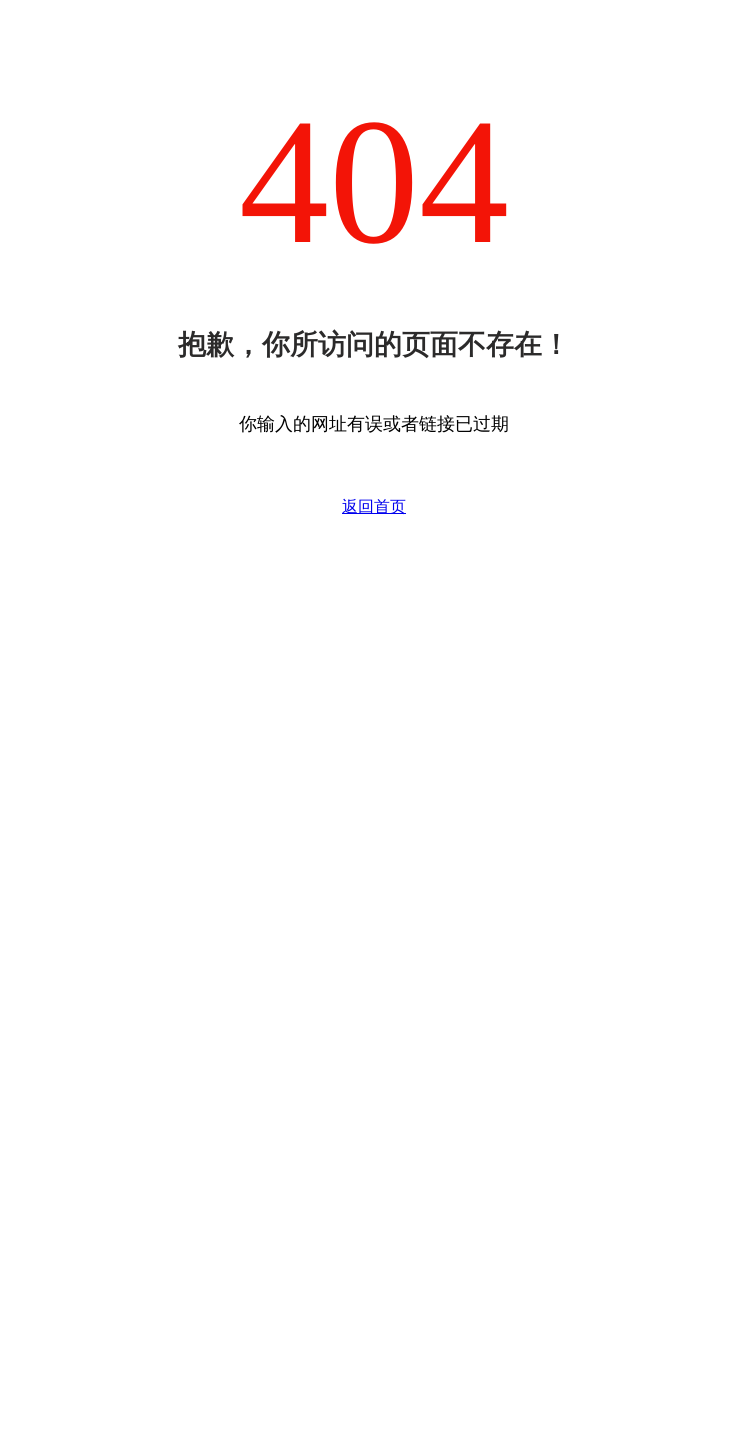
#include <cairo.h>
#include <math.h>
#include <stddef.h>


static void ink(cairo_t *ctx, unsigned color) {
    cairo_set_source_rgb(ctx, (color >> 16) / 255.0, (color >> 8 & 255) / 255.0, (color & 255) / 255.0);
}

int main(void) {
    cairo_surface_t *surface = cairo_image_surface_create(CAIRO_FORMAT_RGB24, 748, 1453);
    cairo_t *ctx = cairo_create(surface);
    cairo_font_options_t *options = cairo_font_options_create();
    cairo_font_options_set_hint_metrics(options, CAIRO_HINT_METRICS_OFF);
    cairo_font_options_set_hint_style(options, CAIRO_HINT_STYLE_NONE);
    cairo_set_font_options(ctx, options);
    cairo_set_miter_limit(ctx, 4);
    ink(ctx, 0xFFFFFF);
    cairo_paint(ctx);
    cairo_select_font_face(ctx, "Liberation Serif", CAIRO_FONT_SLANT_NORMAL, CAIRO_FONT_WEIGHT_NORMAL);
    cairo_set_font_size(ctx, 180);
    ink(ctx, 0xF31407);
    cairo_move_to(ctx, 239, 242);
    cairo_show_text(ctx, "404");
    cairo_select_font_face(ctx, "WenQuanYi Zen Hei", CAIRO_FONT_SLANT_NORMAL, CAIRO_FONT_WEIGHT_BOLD);
    cairo_set_font_size(ctx, 28);
    ink(ctx, 0x2B2A2A);
    cairo_move_to(ctx, 178, 354);
    cairo_show_text(ctx, "抱歉，你所访问的页面不存在！");
    cairo_select_font_face(ctx, "WenQuanYi Zen Hei Medium", CAIRO_FONT_SLANT_NORMAL, CAIRO_FONT_WEIGHT_NORMAL);
    cairo_set_font_size(ctx, 18);
    ink(ctx, 0x000000);
    cairo_move_to(ctx, 239, 430);
    cairo_show_text(ctx, "你输入的网址有误或者链接已过期");
    ink(ctx, 0x0000EE);
    cairo_rectangle(ctx, 342, 513, 64, 1);
    cairo_fill(ctx);
    cairo_set_font_size(ctx, 16);
    cairo_move_to(ctx, 342, 512);
    cairo_show_text(ctx, "返回首页");
    cairo_surface_write_to_png(surface, "image.png");
    cairo_font_options_destroy(options);
    cairo_destroy(ctx);
    cairo_surface_destroy(surface);
    return 0;
}
